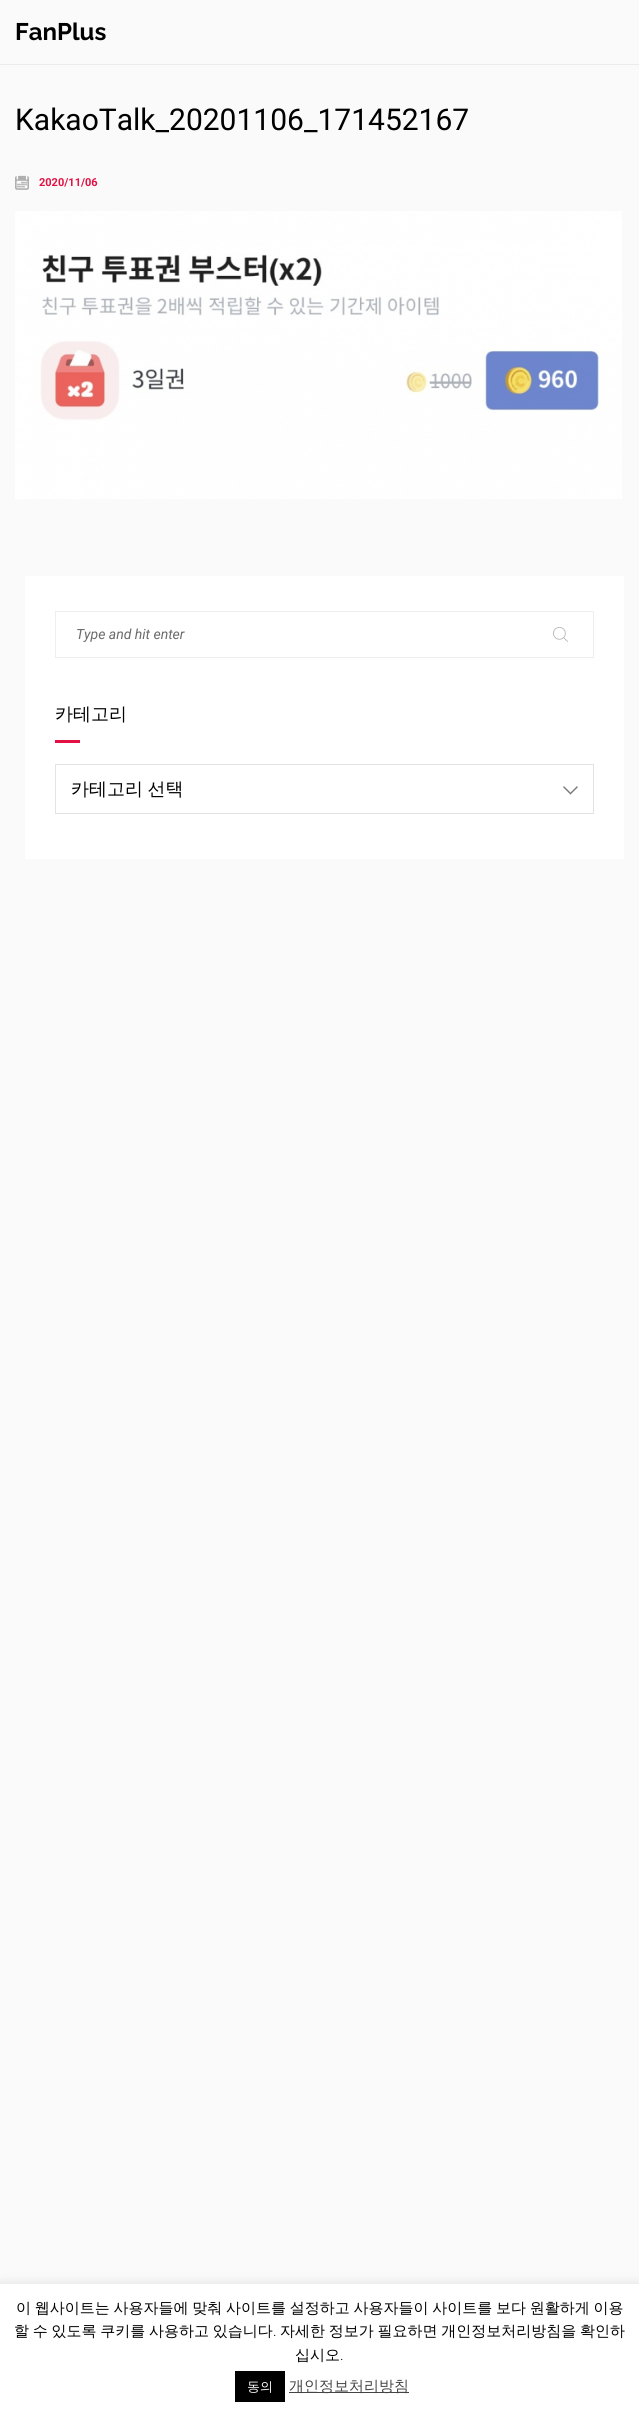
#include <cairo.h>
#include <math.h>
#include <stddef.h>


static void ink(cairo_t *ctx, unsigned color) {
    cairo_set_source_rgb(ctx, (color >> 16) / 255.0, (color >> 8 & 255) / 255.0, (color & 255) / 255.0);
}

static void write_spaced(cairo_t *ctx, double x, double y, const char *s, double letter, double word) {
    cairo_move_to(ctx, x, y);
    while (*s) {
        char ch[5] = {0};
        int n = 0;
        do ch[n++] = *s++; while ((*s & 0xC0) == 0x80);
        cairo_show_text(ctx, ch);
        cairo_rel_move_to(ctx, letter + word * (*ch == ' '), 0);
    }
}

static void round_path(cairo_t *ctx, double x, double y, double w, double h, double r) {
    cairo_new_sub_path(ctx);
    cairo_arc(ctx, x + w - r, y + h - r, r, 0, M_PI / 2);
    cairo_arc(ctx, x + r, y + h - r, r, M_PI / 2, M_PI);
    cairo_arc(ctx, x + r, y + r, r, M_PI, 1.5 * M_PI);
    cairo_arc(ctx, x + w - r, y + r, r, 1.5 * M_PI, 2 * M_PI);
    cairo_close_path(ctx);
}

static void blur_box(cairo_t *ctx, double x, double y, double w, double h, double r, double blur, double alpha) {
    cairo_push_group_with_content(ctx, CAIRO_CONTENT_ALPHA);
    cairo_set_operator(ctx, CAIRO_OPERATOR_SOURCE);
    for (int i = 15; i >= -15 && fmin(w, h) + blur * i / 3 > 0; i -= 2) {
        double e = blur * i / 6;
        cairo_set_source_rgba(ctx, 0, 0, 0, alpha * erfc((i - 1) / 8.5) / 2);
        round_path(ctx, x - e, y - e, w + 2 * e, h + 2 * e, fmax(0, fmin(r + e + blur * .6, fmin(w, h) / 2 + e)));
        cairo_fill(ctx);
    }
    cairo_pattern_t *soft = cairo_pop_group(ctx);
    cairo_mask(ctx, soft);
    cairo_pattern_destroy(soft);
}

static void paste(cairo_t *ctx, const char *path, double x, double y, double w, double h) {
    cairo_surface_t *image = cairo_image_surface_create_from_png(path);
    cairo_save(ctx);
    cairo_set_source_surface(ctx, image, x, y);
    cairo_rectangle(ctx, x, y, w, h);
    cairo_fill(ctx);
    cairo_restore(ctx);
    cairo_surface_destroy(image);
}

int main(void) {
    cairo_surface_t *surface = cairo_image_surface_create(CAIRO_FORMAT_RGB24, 639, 2414);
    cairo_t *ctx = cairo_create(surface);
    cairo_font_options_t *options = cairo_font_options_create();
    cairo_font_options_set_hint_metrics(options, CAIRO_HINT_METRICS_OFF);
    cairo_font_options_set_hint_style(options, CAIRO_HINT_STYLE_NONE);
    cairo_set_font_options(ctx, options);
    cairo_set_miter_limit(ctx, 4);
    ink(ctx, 0xFAFAFA);
    cairo_paint(ctx);
    ink(ctx, 0xEBEBEB);
    cairo_rectangle(ctx, 0, 64, 639, 1);
    cairo_fill(ctx);
    cairo_select_font_face(ctx, "Raleway", CAIRO_FONT_SLANT_NORMAL, CAIRO_FONT_WEIGHT_BOLD);
    cairo_set_font_size(ctx, 24);
    ink(ctx, 0x000000);
    cairo_move_to(ctx, 15, 40);
    cairo_show_text(ctx, "FanPlus");
    cairo_select_font_face(ctx, "Roboto", CAIRO_FONT_SLANT_NORMAL, CAIRO_FONT_WEIGHT_NORMAL);
    cairo_set_font_size(ctx, 30);
    cairo_move_to(ctx, 15, 130);
    cairo_show_text(ctx, "KakaoTalk_20201106_171452167");
    paste(ctx, "media/1.png", 15, 175, 14, 15);
    cairo_select_font_face(ctx, "Roboto", CAIRO_FONT_SLANT_NORMAL, CAIRO_FONT_WEIGHT_BOLD);
    cairo_set_font_size(ctx, 11);
    ink(ctx, 0xE31043);
    cairo_move_to(ctx, 39, 186);
    cairo_show_text(ctx, "2020/11/06");
    paste(ctx, "media/2.png", 15, 211, 607, 288);
    ink(ctx, 0xFFFFFF);
    cairo_rectangle(ctx, 25, 576, 599, 283);
    cairo_fill(ctx);
    cairo_rectangle(ctx, 55.5, 611.5, 538, 46);
    ink(ctx, 0xEEEEEE);
    cairo_set_line_width(ctx, 1);
    cairo_stroke(ctx);
    cairo_select_font_face(ctx, "Roboto", CAIRO_FONT_SLANT_ITALIC, CAIRO_FONT_WEIGHT_NORMAL);
    cairo_set_font_size(ctx, 14);
    ink(ctx, 0x6A6A6A);
    cairo_move_to(ctx, 76, 639);
    cairo_show_text(ctx, "Type and hit enter");
    paste(ctx, "media/3.png", 553, 627, 15, 15);
    cairo_select_font_face(ctx, "WenQuanYi Zen Hei Medium", CAIRO_FONT_SLANT_NORMAL, CAIRO_FONT_WEIGHT_NORMAL);
    cairo_set_font_size(ctx, 18);
    ink(ctx, 0x000000);
    cairo_move_to(ctx, 55, 720);
    cairo_show_text(ctx, "카테고리");
    ink(ctx, 0xE31043);
    cairo_rectangle(ctx, 55, 740, 25, 3);
    cairo_fill(ctx);
    paste(ctx, "media/4.png", 563, 786, 15, 9);
    cairo_rectangle(ctx, 55.5, 764.5, 538, 49);
    ink(ctx, 0xE3E3E3);
    cairo_stroke(ctx);
    ink(ctx, 0x000000);
    write_spaced(ctx, 71, 795, "카테고리 선택", 0, -1);
    ink(ctx, 0xACABAB);
    blur_box(ctx, 0, 2283, 639, 130, 0, 5, 0.3);
    ink(ctx, 0xFFFFFF);
    cairo_rectangle(ctx, 0, 2284, 639, 130);
    cairo_fill(ctx);
    cairo_set_font_size(ctx, 15);
    ink(ctx, 0x000000);
    write_spaced(ctx, 16, 2313, "이 웹사이트는 사용자들에 맞춰 사이트를 설정하고 사용자들이 사이트를 보다 원활하게 이용", 0, -0.75);
    write_spaced(ctx, 14, 2336, "할 수 있도록 쿠키를 사용하고 있습니다", 0, -0.75);
    cairo_select_font_face(ctx, "Roboto Light", CAIRO_FONT_SLANT_NORMAL, CAIRO_FONT_WEIGHT_NORMAL);
    cairo_move_to(ctx, 273, 2336);
    cairo_show_text(ctx, ".");
    cairo_select_font_face(ctx, "WenQuanYi Zen Hei Medium", CAIRO_FONT_SLANT_NORMAL, CAIRO_FONT_WEIGHT_NORMAL);
    write_spaced(ctx, 280, 2336, "자세한 정보가 필요하면 개인정보처리방침을 확인하", 0, -0.75);
    cairo_move_to(ctx, 295, 2360);
    cairo_show_text(ctx, "십시오");
    cairo_select_font_face(ctx, "Roboto Light", CAIRO_FONT_SLANT_NORMAL, CAIRO_FONT_WEIGHT_NORMAL);
    cairo_move_to(ctx, 340, 2360);
    cairo_show_text(ctx, ".");
    cairo_rectangle(ctx, 235, 2371, 50, 31);
    cairo_fill(ctx);
    cairo_select_font_face(ctx, "WenQuanYi Zen Hei Medium", CAIRO_FONT_SLANT_NORMAL, CAIRO_FONT_WEIGHT_NORMAL);
    cairo_set_font_size(ctx, 13);
    ink(ctx, 0xFFFFFF);
    cairo_move_to(ctx, 247, 2391);
    cairo_show_text(ctx, "동의");
    ink(ctx, 0x444444);
    cairo_rectangle(ctx, 289, 2392, 120, 1);
    cairo_fill(ctx);
    cairo_set_font_size(ctx, 15);
    cairo_move_to(ctx, 289, 2391);
    cairo_show_text(ctx, "개인정보처리방침");
    cairo_surface_write_to_png(surface, "image.png");
    cairo_font_options_destroy(options);
    cairo_destroy(ctx);
    cairo_surface_destroy(surface);
    return 0;
}
